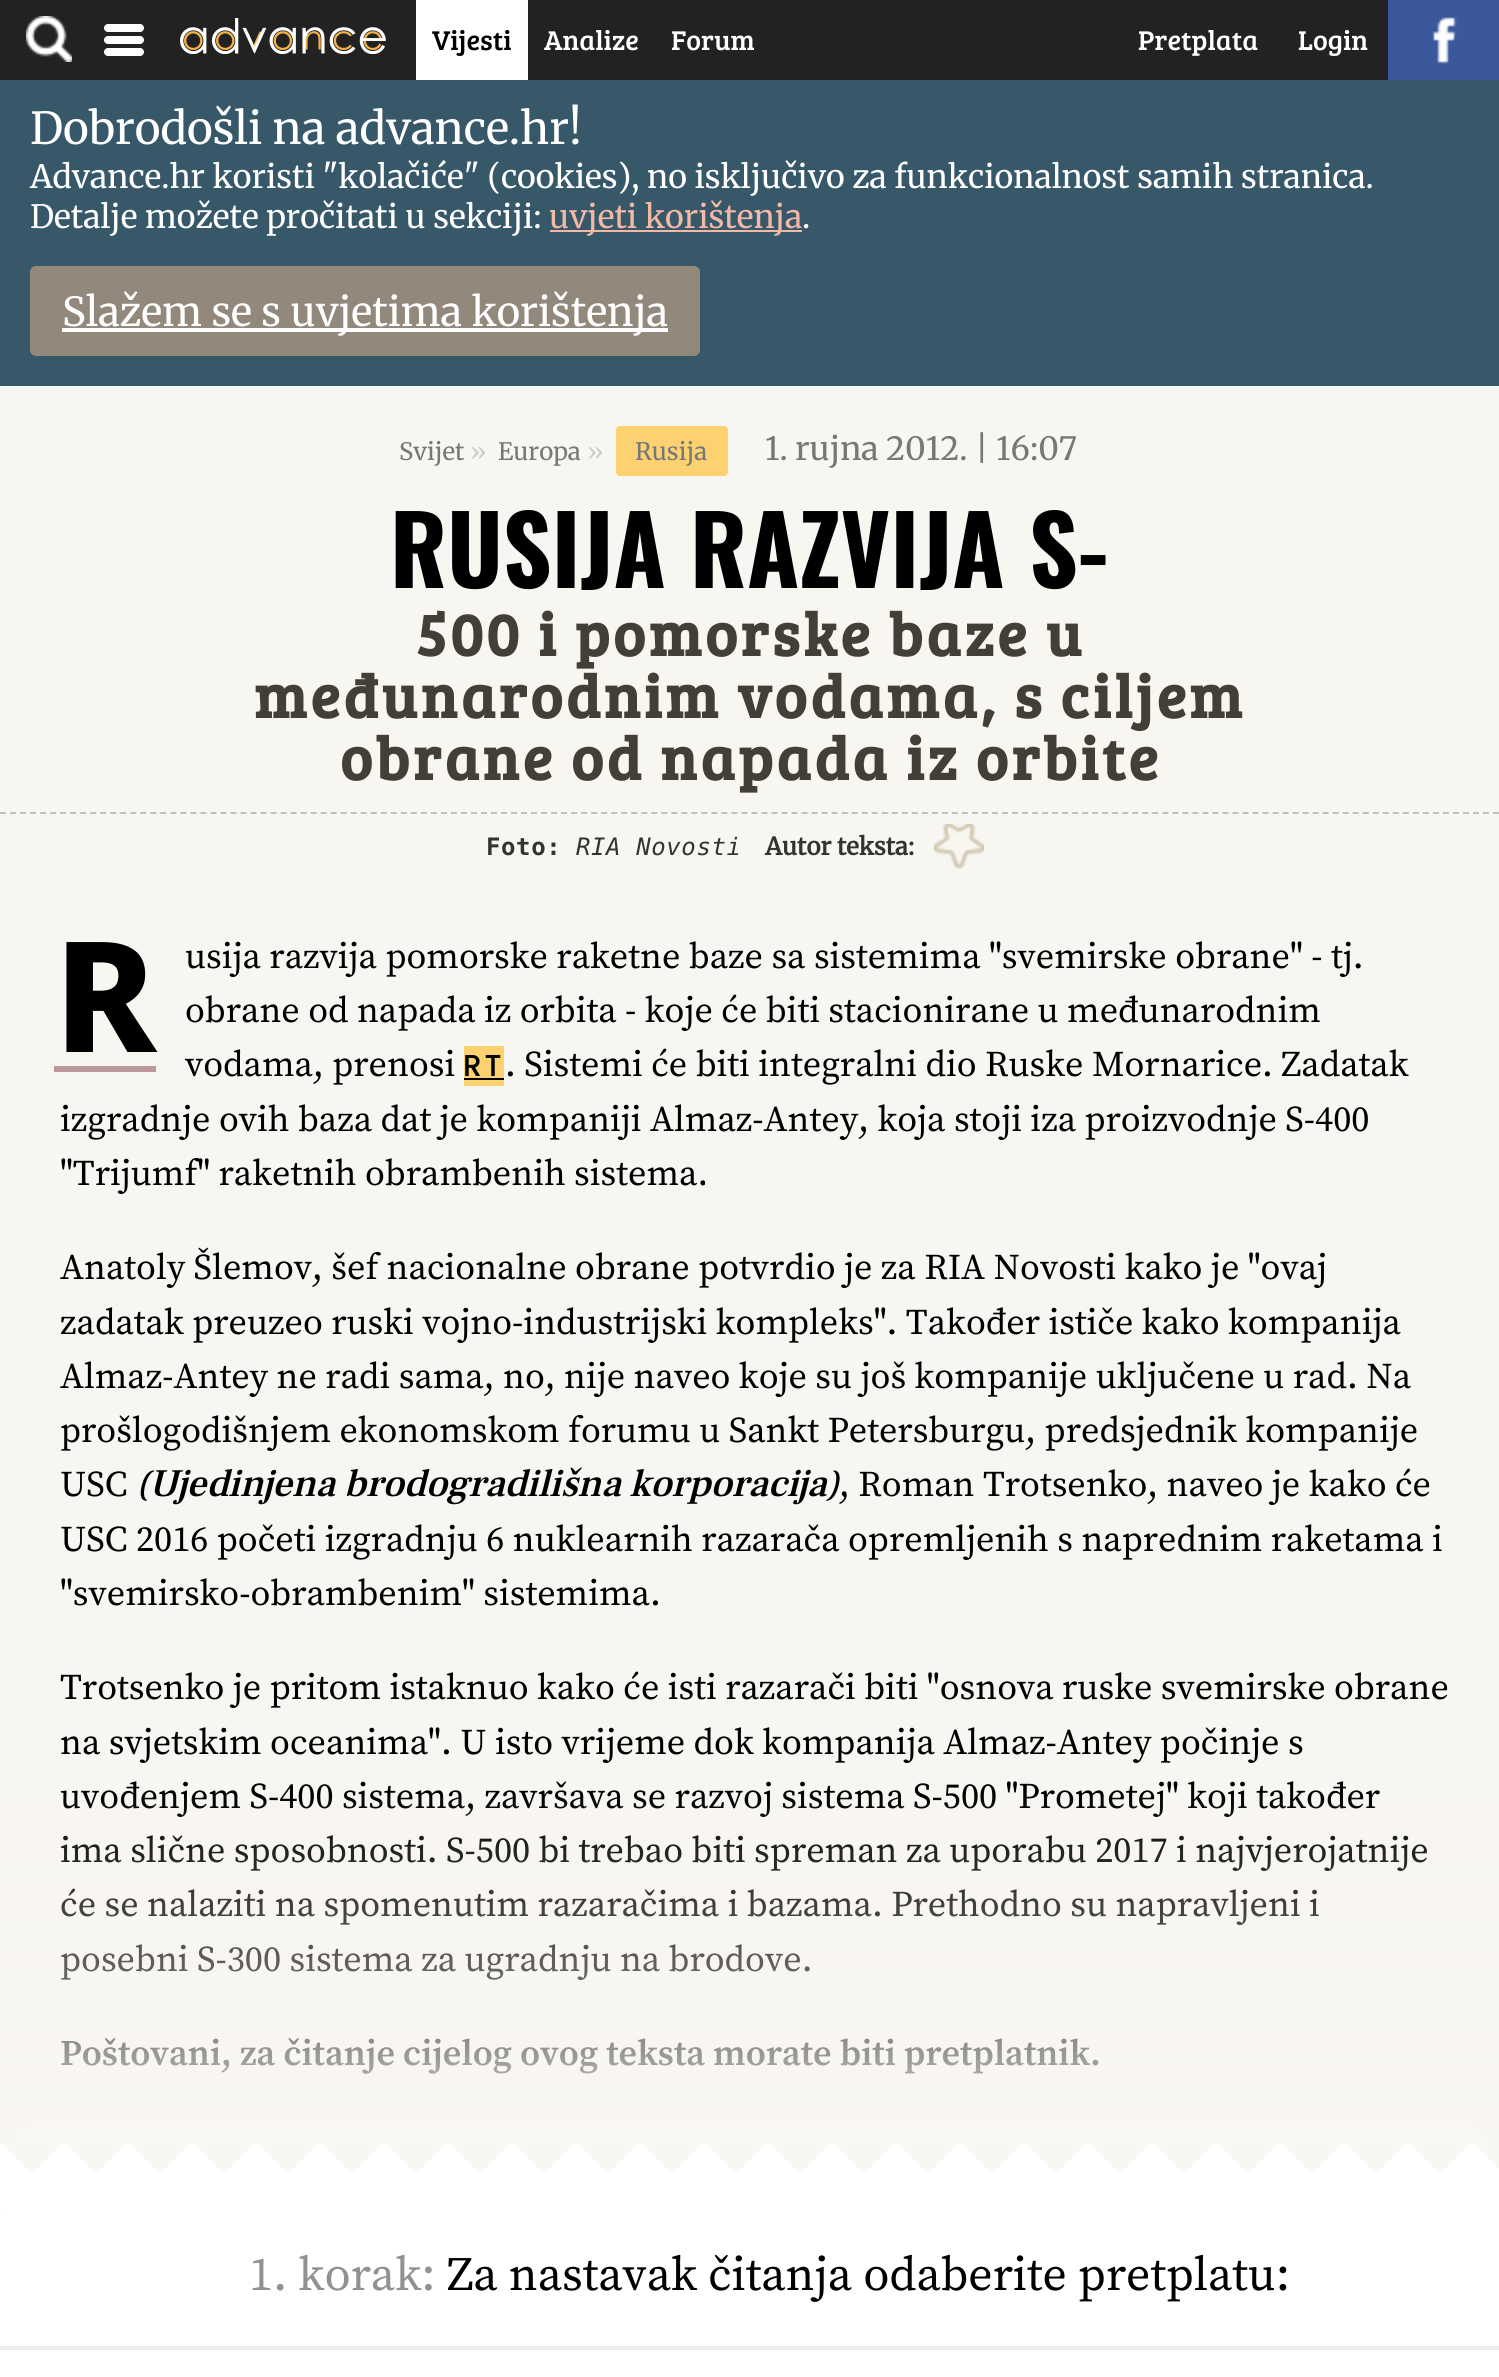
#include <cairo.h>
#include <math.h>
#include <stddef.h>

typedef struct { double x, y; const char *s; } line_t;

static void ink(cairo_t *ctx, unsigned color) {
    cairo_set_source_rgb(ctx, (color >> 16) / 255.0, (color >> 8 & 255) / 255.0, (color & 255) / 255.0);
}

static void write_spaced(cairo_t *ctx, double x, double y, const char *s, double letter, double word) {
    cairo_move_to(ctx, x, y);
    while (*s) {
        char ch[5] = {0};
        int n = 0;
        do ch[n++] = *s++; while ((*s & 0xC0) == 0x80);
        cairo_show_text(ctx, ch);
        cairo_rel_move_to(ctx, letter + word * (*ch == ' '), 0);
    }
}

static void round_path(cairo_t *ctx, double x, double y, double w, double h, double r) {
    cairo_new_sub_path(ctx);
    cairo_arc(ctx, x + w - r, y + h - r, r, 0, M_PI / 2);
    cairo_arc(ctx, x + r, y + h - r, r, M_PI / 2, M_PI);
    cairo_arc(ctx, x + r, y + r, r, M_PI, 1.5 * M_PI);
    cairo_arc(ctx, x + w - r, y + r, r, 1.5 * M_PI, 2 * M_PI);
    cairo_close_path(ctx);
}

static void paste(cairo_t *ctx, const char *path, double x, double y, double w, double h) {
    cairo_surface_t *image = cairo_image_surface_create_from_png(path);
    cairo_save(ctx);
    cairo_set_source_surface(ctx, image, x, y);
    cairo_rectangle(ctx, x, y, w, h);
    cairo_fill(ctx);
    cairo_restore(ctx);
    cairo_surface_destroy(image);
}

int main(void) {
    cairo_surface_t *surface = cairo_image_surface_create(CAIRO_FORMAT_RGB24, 1499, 2377);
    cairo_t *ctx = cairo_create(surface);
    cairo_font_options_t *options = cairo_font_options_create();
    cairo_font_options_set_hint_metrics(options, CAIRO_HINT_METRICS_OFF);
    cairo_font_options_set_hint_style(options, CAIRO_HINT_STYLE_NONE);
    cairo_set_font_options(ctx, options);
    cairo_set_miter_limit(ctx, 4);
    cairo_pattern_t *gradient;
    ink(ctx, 0xF8F6F1);
    cairo_paint(ctx);
    ink(ctx, 0x222222);
    cairo_rectangle(ctx, 0, 0, 1388, 80);
    cairo_fill(ctx);
    paste(ctx, "media/1.png", 26, 16, 46, 46);
    ink(ctx, 0xFFFFFF);
    round_path(ctx, 104, 24, 40, 8, 4);
    cairo_fill(ctx);
    round_path(ctx, 104, 36, 40, 8, 4);
    cairo_fill(ctx);
    round_path(ctx, 104, 48, 40, 8, 4);
    cairo_fill(ctx);
    paste(ctx, "media/2.png", 180, 18, 206, 36);
    cairo_rectangle(ctx, 416, 0, 112, 80);
    cairo_fill(ctx);
    cairo_select_font_face(ctx, "Bree Serif", CAIRO_FONT_SLANT_NORMAL, CAIRO_FONT_WEIGHT_NORMAL);
    cairo_set_font_size(ctx, 28);
    ink(ctx, 0x000000);
    cairo_move_to(ctx, 432, 50);
    cairo_show_text(ctx, "Vijesti");
    ink(ctx, 0xFFFFFF);
    {
        static const line_t items[] = {
            {544, 50, "Analize"},
            {671, 50, "Forum"},
            {1138, 50, "Pretplata"},
            {1298, 50, "Login"},
        };
        for (size_t i = 0; i < sizeof items / sizeof *items; i++) {
            cairo_move_to(ctx, items[i].x, items[i].y);
            cairo_show_text(ctx, items[i].s);
        }
    }
    ink(ctx, 0x3A589B);
    cairo_rectangle(ctx, 1388, 0, 111, 80);
    cairo_fill(ctx);
    paste(ctx, "media/3.png", 1432, 17, 25, 47);
    ink(ctx, 0x365869);
    cairo_rectangle(ctx, 0, 80, 1499, 306);
    cairo_fill(ctx);
    cairo_select_font_face(ctx, "Merriweather Light", CAIRO_FONT_SLANT_NORMAL, CAIRO_FONT_WEIGHT_NORMAL);
    cairo_set_font_size(ctx, 44);
    ink(ctx, 0xFFFFFF);
    cairo_move_to(ctx, 30, 144);
    cairo_show_text(ctx, "Dobrodošli na advance.hr!");
    cairo_set_font_size(ctx, 32);
    cairo_move_to(ctx, 30, 188);
    cairo_show_text(ctx, "Advance.hr koristi \"kolačiće\" (cookies), no isključivo za funkcionalnost samih stranica.");
    cairo_move_to(ctx, 30, 228);
    cairo_show_text(ctx, "Detalje možete pročitati u sekciji:");
    ink(ctx, 0xF3B8A6);
    cairo_rectangle(ctx, 550, 230, 252, 2);
    cairo_fill(ctx);
    cairo_move_to(ctx, 549, 228);
    cairo_show_text(ctx, "uvjeti korištenja");
    ink(ctx, 0xFFFFFF);
    cairo_move_to(ctx, 802, 228);
    cairo_show_text(ctx, ".");
    ink(ctx, 0x92887C);
    round_path(ctx, 30, 266, 670, 90, 6);
    cairo_fill(ctx);
    ink(ctx, 0xFFFFFF);
    cairo_rectangle(ctx, 62, 328, 606, 4);
    cairo_fill(ctx);
    cairo_set_font_size(ctx, 40);
    cairo_move_to(ctx, 62, 326);
    cairo_show_text(ctx, "Slažem se s uvjetima korištenja");
    cairo_set_font_size(ctx, 24);
    ink(ctx, 0x777777);
    cairo_move_to(ctx, 399, 460);
    cairo_show_text(ctx, "Svijet");
    ink(ctx, 0xCCCCCC);
    cairo_move_to(ctx, 470, 460);
    cairo_show_text(ctx, "»");
    ink(ctx, 0x777777);
    cairo_move_to(ctx, 498, 460);
    cairo_show_text(ctx, "Europa");
    ink(ctx, 0xCCCCCC);
    cairo_move_to(ctx, 587, 460);
    cairo_show_text(ctx, "»");
    ink(ctx, 0xFCD270);
    round_path(ctx, 616, 426, 112, 50, 4);
    cairo_fill(ctx);
    ink(ctx, 0x777777);
    cairo_move_to(ctx, 635, 460);
    cairo_show_text(ctx, "Rusija");
    cairo_set_font_size(ctx, 32);
    cairo_move_to(ctx, 765, 460);
    cairo_show_text(ctx, "1. rujna 2012. | 16:07");
    cairo_select_font_face(ctx, "Oswald", CAIRO_FONT_SLANT_NORMAL, CAIRO_FONT_WEIGHT_BOLD);
    cairo_set_font_size(ctx, 95);
    ink(ctx, 0x000000);
    cairo_move_to(ctx, 390, 588);
    cairo_show_text(ctx, "RUSIJA RAZVIJA S-");
    cairo_select_font_face(ctx, "Bree Serif", CAIRO_FONT_SLANT_NORMAL, CAIRO_FONT_WEIGHT_BOLD);
    cairo_set_font_size(ctx, 61);
    ink(ctx, 0x433F38);
    {
        static const line_t items[] = {
            {416, 656, "500 i pomorske baze u"},
            {254, 718, "međunarodnim vodama, s ciljem"},
            {340, 780, "obrane od napada iz orbite"},
        };
        for (size_t i = 0; i < sizeof items / sizeof *items; i++) {
            write_spaced(ctx, items[i].x, items[i].y, items[i].s, 3.4, 0);
        }
    }
    cairo_new_path(ctx);
    cairo_move_to(ctx, 0, 813);
    cairo_line_to(ctx, 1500, 813);
    ink(ctx, 0xBFBFBF);
    cairo_set_dash(ctx, (double[]){6, 4.02}, 2, 0);
    cairo_stroke(ctx);
    cairo_select_font_face(ctx, "DejaVu Sans Mono", CAIRO_FONT_SLANT_NORMAL, CAIRO_FONT_WEIGHT_BOLD);
    cairo_set_font_size(ctx, 24);
    ink(ctx, 0x333333);
    write_spaced(ctx, 486, 855, "Foto:", 0.6, 0);
    cairo_select_font_face(ctx, "DejaVu Sans Mono", CAIRO_FONT_SLANT_ITALIC, CAIRO_FONT_WEIGHT_NORMAL);
    write_spaced(ctx, 576, 855, "RIA Novosti", 0.6, 0);
    cairo_select_font_face(ctx, "Merriweather", CAIRO_FONT_SLANT_NORMAL, CAIRO_FONT_WEIGHT_BOLD);
    cairo_move_to(ctx, 765, 855);
    cairo_show_text(ctx, "Autor teksta:");
    paste(ctx, "media/4.png", 934, 824, 50, 45);
    ink(ctx, 0xBD9898);
    cairo_rectangle(ctx, 54, 1066, 102, 6);
    cairo_fill(ctx);
    cairo_select_font_face(ctx, "Noto Sans ExtraBold", CAIRO_FONT_SLANT_NORMAL, CAIRO_FONT_WEIGHT_NORMAL);
    cairo_set_font_size(ctx, 154);
    ink(ctx, 0x000000);
    cairo_move_to(ctx, 54, 1052);
    cairo_show_text(ctx, "R");
    cairo_select_font_face(ctx, "Source Serif Pro", CAIRO_FONT_SLANT_NORMAL, CAIRO_FONT_WEIGHT_NORMAL);
    cairo_set_font_size(ctx, 36.15);
    {
        static const line_t items[] = {
            {185, 968, "usija razvija pomorske raketne baze sa sistemima \"svemirske obrane\" - tj."},
            {185, 1022, "obrane od napada iz orbita - koje će biti stacionirane u međunarodnim"},
            {185, 1076, "vodama, prenosi"},
        };
        for (size_t i = 0; i < sizeof items / sizeof *items; i++) {
            cairo_move_to(ctx, items[i].x, items[i].y);
            cairo_show_text(ctx, items[i].s);
        }
    }
    ink(ctx, 0xFCD170);
    cairo_rectangle(ctx, 464, 1046, 40, 40);
    cairo_fill(ctx);
    cairo_select_font_face(ctx, "Poppins", CAIRO_FONT_SLANT_NORMAL, CAIRO_FONT_WEIGHT_BOLD);
    cairo_set_font_size(ctx, 29);
    ink(ctx, 0x000000);
    write_spaced(ctx, 463, 1076, "RT", 4, 0);
    cairo_rectangle(ctx, 464, 1078, 40, 2);
    cairo_fill(ctx);
    cairo_select_font_face(ctx, "Source Serif Pro", CAIRO_FONT_SLANT_NORMAL, CAIRO_FONT_WEIGHT_NORMAL);
    cairo_set_font_size(ctx, 36.15);
    {
        static const line_t items[] = {
            {505, 1076, ". Sistemi će biti integralni dio Ruske Mornarice. Zadatak"},
            {60, 1131, "izgradnje ovih baza dat je kompaniji Almaz-Antey, koja stoji iza proizvodnje S-400"},
            {60, 1185, "\"Trijumf\" raketnih obrambenih sistema."},
            {60, 1279, "Anatoly Šlemov, šef nacionalne obrane potvrdio je za RIA Novosti kako je \"ovaj"},
            {60, 1334, "zadatak preuzeo ruski vojno-industrijski kompleks\". Također ističe kako kompanija"},
            {60, 1388, "Almaz-Antey ne radi sama, no, nije naveo koje su još kompanije uključene u rad. Na"},
            {60, 1442, "prošlogodišnjem ekonomskom forumu u Sankt Petersburgu, predsjednik kompanije"},
            {60, 1496, "USC"},
        };
        for (size_t i = 0; i < sizeof items / sizeof *items; i++) {
            cairo_move_to(ctx, items[i].x, items[i].y);
            cairo_show_text(ctx, items[i].s);
        }
    }
    cairo_select_font_face(ctx, "Frank Ruhl Libre Medium", CAIRO_FONT_SLANT_ITALIC, CAIRO_FONT_WEIGHT_NORMAL);
    cairo_set_font_size(ctx, 39);
    write_spaced(ctx, 136, 1496, "(Ujedinjena brodogradilišna korporacija)", -0.4, 0);
    cairo_select_font_face(ctx, "Source Serif Pro", CAIRO_FONT_SLANT_NORMAL, CAIRO_FONT_WEIGHT_NORMAL);
    cairo_set_font_size(ctx, 36.15);
    {
        static const line_t items[] = {
            {839, 1496, ", Roman Trotsenko, naveo je kako će"},
            {60, 1551, "USC 2016 početi izgradnju 6 nuklearnih razarača opremljenih s naprednim raketama i"},
            {60, 1605, "\"svemirsko-obrambenim\" sistemima."},
            {60, 1699, "Trotsenko je pritom istaknuo kako će isti razarači biti \"osnova ruske svemirske obrane"},
            {60, 1754, "na svjetskim oceanima\". U isto vrijeme dok kompanija Almaz-Antey počinje s"},
            {60, 1808, "uvođenjem S-400 sistema, završava se razvoj sistema S-500 \"Prometej\" koji također"},
            {60, 1862, "ima slične sposobnosti. S-500 bi trebao biti spreman za uporabu 2017 i najvjerojatnije"},
            {60, 1916, "će se nalaziti na spomenutim razaračima i bazama. Prethodno su napravljeni i"},
            {60, 1971, "posebni S-300 sistema za ugradnju na brodove."},
        };
        for (size_t i = 0; i < sizeof items / sizeof *items; i++) {
            cairo_move_to(ctx, items[i].x, items[i].y);
            cairo_show_text(ctx, items[i].s);
        }
    }
    cairo_select_font_face(ctx, "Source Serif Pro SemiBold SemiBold", CAIRO_FONT_SLANT_NORMAL, CAIRO_FONT_WEIGHT_NORMAL);
    cairo_move_to(ctx, 60, 2065);
    cairo_show_text(ctx, "Poštovani, za čitanje cijelog ovog teksta morate biti pretplatnik.");
    ink(ctx, 0xFFFFFF);
    round_path(ctx, 0, 2122, 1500, 126, 40);
    cairo_fill(ctx);
    gradient = cairo_pattern_create_linear(0, 2172, 0, 1786);
    cairo_pattern_add_color_stop_rgba(gradient, 0, 0.973, 0.965, 0.945, 1);
    cairo_pattern_add_color_stop_rgba(gradient, 0.4, 0.973, 0.965, 0.945, 0.5);
    cairo_pattern_add_color_stop_rgba(gradient, 1, 0.973, 0.965, 0.945, 0);
    cairo_set_source(ctx, gradient);
    cairo_pattern_destroy(gradient);
    cairo_rectangle(ctx, 0, 1796, 1499, 376);
    cairo_fill(ctx);
    ink(ctx, 0xFFFFFF);
    cairo_rectangle(ctx, 0, 2212, 1499, 165);
    cairo_fill(ctx);
    paste(ctx, "media/5.png", 0, 2142, 1499, 44);
    paste(ctx, "media/6.png", 34, 2142, 1438, 44);
    ink(ctx, 0xEEEEEE);
    cairo_rectangle(ctx, 0, 2346, 1499, 4);
    cairo_fill(ctx);
    cairo_select_font_face(ctx, "Source Serif Pro", CAIRO_FONT_SLANT_NORMAL, CAIRO_FONT_WEIGHT_NORMAL);
    cairo_set_font_size(ctx, 47.75);
    ink(ctx, 0x919191);
    cairo_move_to(ctx, 249, 2290);
    cairo_show_text(ctx, "1. korak:");
    ink(ctx, 0x000000);
    cairo_move_to(ctx, 447, 2290);
    cairo_show_text(ctx, "Za nastavak čitanja odaberite pretplatu:");
    cairo_surface_write_to_png(surface, "image.png");
    cairo_font_options_destroy(options);
    cairo_destroy(ctx);
    cairo_surface_destroy(surface);
    return 0;
}
